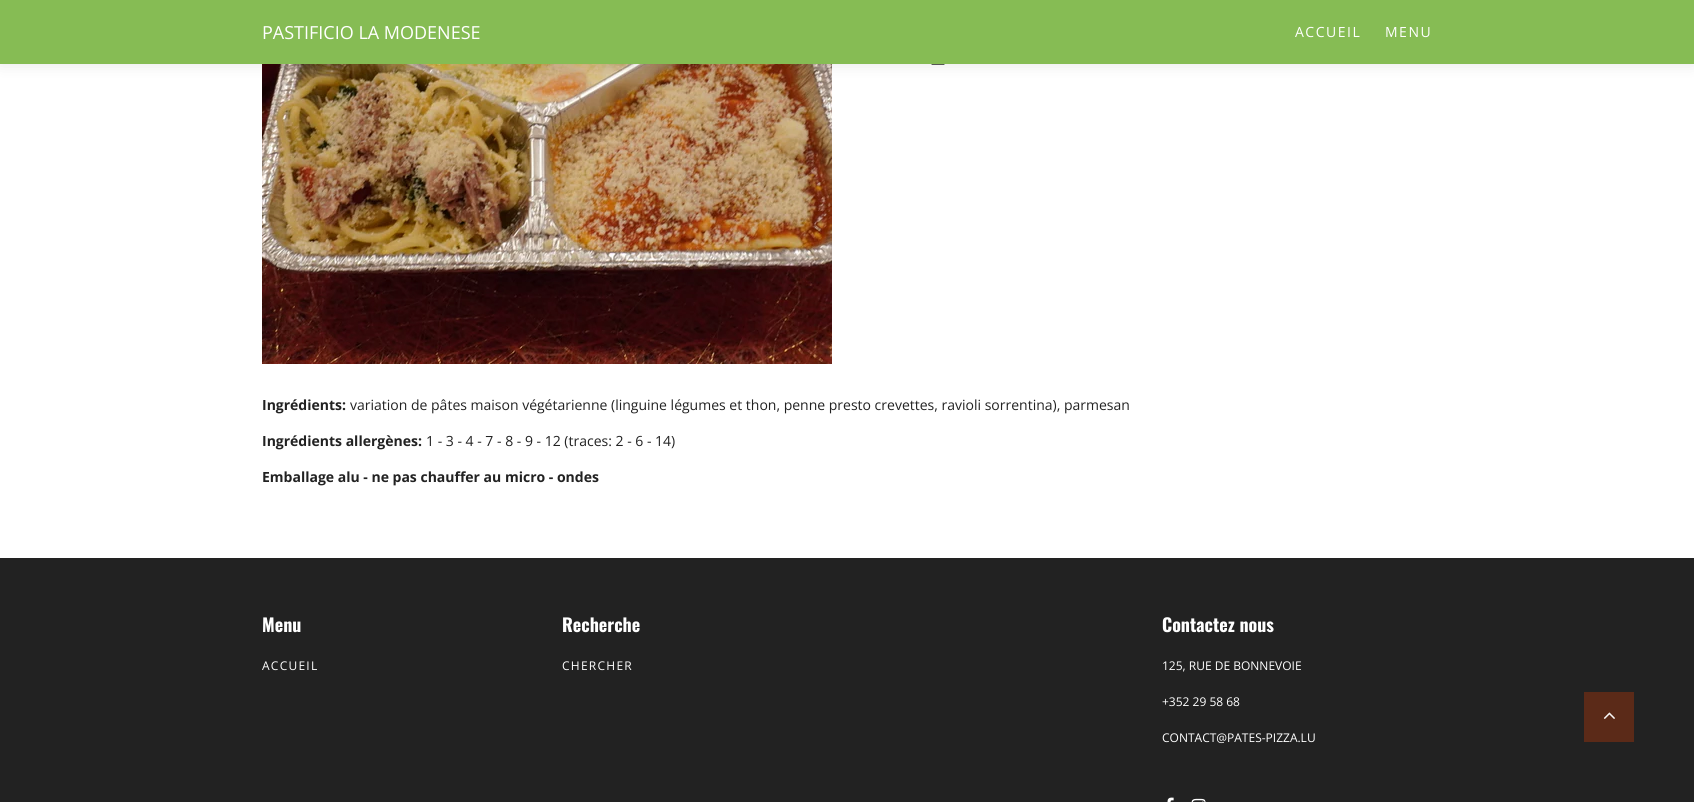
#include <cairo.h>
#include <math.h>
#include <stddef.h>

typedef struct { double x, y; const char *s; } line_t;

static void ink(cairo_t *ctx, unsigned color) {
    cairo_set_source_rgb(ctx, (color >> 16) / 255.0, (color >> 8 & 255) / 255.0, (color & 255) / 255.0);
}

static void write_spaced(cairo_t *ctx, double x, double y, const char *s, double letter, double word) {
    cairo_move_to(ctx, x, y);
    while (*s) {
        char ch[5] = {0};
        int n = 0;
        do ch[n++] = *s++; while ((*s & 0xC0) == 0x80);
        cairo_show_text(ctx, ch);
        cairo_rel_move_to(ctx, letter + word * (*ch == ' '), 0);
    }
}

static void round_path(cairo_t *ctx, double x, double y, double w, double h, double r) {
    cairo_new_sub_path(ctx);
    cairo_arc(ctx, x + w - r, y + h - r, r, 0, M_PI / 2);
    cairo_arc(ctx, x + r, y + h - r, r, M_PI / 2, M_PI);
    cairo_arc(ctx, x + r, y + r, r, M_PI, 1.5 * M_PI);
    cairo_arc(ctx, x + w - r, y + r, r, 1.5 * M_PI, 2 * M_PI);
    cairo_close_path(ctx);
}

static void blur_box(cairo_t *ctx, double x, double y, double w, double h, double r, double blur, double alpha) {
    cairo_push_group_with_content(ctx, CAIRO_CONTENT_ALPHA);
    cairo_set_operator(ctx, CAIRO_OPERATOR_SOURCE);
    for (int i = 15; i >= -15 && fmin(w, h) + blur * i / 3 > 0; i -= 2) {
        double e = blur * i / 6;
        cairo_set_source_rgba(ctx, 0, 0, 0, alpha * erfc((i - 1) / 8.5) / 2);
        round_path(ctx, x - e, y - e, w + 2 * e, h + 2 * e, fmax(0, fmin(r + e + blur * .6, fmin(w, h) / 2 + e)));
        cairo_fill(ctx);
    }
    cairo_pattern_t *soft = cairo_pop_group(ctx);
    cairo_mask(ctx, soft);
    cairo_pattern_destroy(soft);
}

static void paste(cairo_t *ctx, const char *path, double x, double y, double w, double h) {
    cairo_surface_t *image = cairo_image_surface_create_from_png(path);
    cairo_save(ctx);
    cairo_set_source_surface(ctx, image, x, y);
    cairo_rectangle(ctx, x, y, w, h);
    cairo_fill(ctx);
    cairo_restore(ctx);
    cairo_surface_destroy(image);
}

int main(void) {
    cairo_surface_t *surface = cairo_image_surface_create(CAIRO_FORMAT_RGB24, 1694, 802);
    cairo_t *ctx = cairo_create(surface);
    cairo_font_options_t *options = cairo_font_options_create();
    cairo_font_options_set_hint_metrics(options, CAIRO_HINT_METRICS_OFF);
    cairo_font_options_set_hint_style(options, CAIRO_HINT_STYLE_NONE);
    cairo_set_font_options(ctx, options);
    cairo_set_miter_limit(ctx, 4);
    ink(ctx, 0xFFFFFF);
    cairo_paint(ctx);
    paste(ctx, "media/1.png", 262, 64, 570, 300);
    ink(ctx, 0x000000);
    blur_box(ctx, 0, 0, 1694, 64, 0, 7.5, 0.1);
    cairo_select_font_face(ctx, "Open Sans", CAIRO_FONT_SLANT_NORMAL, CAIRO_FONT_WEIGHT_NORMAL);
    cairo_set_font_size(ctx, 14);
    ink(ctx, 0x222222);
    cairo_move_to(ctx, 931, 68);
    cairo_show_text(ctx, "—");
    ink(ctx, 0x86BC54);
    cairo_rectangle(ctx, 0, 0, 1694, 64);
    cairo_fill(ctx);
    cairo_set_font_size(ctx, 18);
    ink(ctx, 0xFFFFFF);
    cairo_move_to(ctx, 262, 39);
    cairo_show_text(ctx, "PASTIFICIO LA MODENESE");
    cairo_set_font_size(ctx, 14);
    write_spaced(ctx, 1295, 37, "ACCUEIL", 1.5, 0);
    write_spaced(ctx, 1385, 37, "MENU", 1.5, 0);
    cairo_select_font_face(ctx, "Open Sans", CAIRO_FONT_SLANT_NORMAL, CAIRO_FONT_WEIGHT_BOLD);
    ink(ctx, 0x222222);
    cairo_move_to(ctx, 262, 410);
    cairo_show_text(ctx, "Ingrédients:");
    cairo_select_font_face(ctx, "Open Sans", CAIRO_FONT_SLANT_NORMAL, CAIRO_FONT_WEIGHT_NORMAL);
    cairo_move_to(ctx, 350, 410);
    cairo_show_text(ctx, "variation de pâtes maison végétarienne (linguine légumes et thon, penne presto crevettes, ravioli sorrentina), parmesan");
    cairo_select_font_face(ctx, "Open Sans", CAIRO_FONT_SLANT_NORMAL, CAIRO_FONT_WEIGHT_BOLD);
    cairo_move_to(ctx, 262, 446);
    cairo_show_text(ctx, "Ingrédients allergènes:");
    cairo_select_font_face(ctx, "Open Sans", CAIRO_FONT_SLANT_NORMAL, CAIRO_FONT_WEIGHT_NORMAL);
    cairo_move_to(ctx, 426, 446);
    cairo_show_text(ctx, "1 - 3 - 4 - 7 - 8 - 9 - 12 (traces: 2 - 6 - 14)");
    cairo_select_font_face(ctx, "Open Sans", CAIRO_FONT_SLANT_NORMAL, CAIRO_FONT_WEIGHT_BOLD);
    cairo_move_to(ctx, 262, 482);
    cairo_show_text(ctx, "Emballage alu - ne pas chauffer au micro - ondes");
    cairo_rectangle(ctx, 0, 558, 1694, 244);
    cairo_fill(ctx);
    cairo_select_font_face(ctx, "Oswald", CAIRO_FONT_SLANT_NORMAL, CAIRO_FONT_WEIGHT_BOLD);
    cairo_set_font_size(ctx, 18);
    ink(ctx, 0xFFFFFF);
    cairo_move_to(ctx, 262, 632);
    cairo_show_text(ctx, "Menu");
    cairo_select_font_face(ctx, "Open Sans", CAIRO_FONT_SLANT_NORMAL, CAIRO_FONT_WEIGHT_NORMAL);
    cairo_set_font_size(ctx, 12);
    write_spaced(ctx, 262, 670, "ACCUEIL", 1.25, 0);
    cairo_select_font_face(ctx, "Oswald", CAIRO_FONT_SLANT_NORMAL, CAIRO_FONT_WEIGHT_BOLD);
    cairo_set_font_size(ctx, 18);
    cairo_move_to(ctx, 562, 632);
    cairo_show_text(ctx, "Recherche");
    cairo_select_font_face(ctx, "Open Sans", CAIRO_FONT_SLANT_NORMAL, CAIRO_FONT_WEIGHT_NORMAL);
    cairo_set_font_size(ctx, 12);
    write_spaced(ctx, 562, 670, "CHERCHER", 1.25, 0);
    cairo_select_font_face(ctx, "Oswald", CAIRO_FONT_SLANT_NORMAL, CAIRO_FONT_WEIGHT_BOLD);
    cairo_set_font_size(ctx, 18);
    cairo_move_to(ctx, 1162, 632);
    cairo_show_text(ctx, "Contactez nous");
    cairo_select_font_face(ctx, "Open Sans", CAIRO_FONT_SLANT_NORMAL, CAIRO_FONT_WEIGHT_NORMAL);
    cairo_set_font_size(ctx, 12);
    {
        static const line_t items[] = {
            {1162, 670, "125, RUE DE BONNEVOIE"},
            {1162, 706, "+352 29 58 68"},
            {1162, 742, "CONTACT@PATES-PIZZA.LU"},
        };
        for (size_t i = 0; i < sizeof items / sizeof *items; i++) {
            cairo_move_to(ctx, items[i].x, items[i].y);
            cairo_show_text(ctx, items[i].s);
        }
    }
    paste(ctx, "media/2.png", 1167, 797, 7, 5);
    paste(ctx, "media/3.png", 1191, 798, 15, 4);
    ink(ctx, 0x5B2A18);
    cairo_rectangle(ctx, 1584, 692, 50, 50);
    cairo_fill(ctx);
    paste(ctx, "media/4.png", 1603, 712, 12, 7);
    cairo_surface_write_to_png(surface, "image.png");
    cairo_font_options_destroy(options);
    cairo_destroy(ctx);
    cairo_surface_destroy(surface);
    return 0;
}
